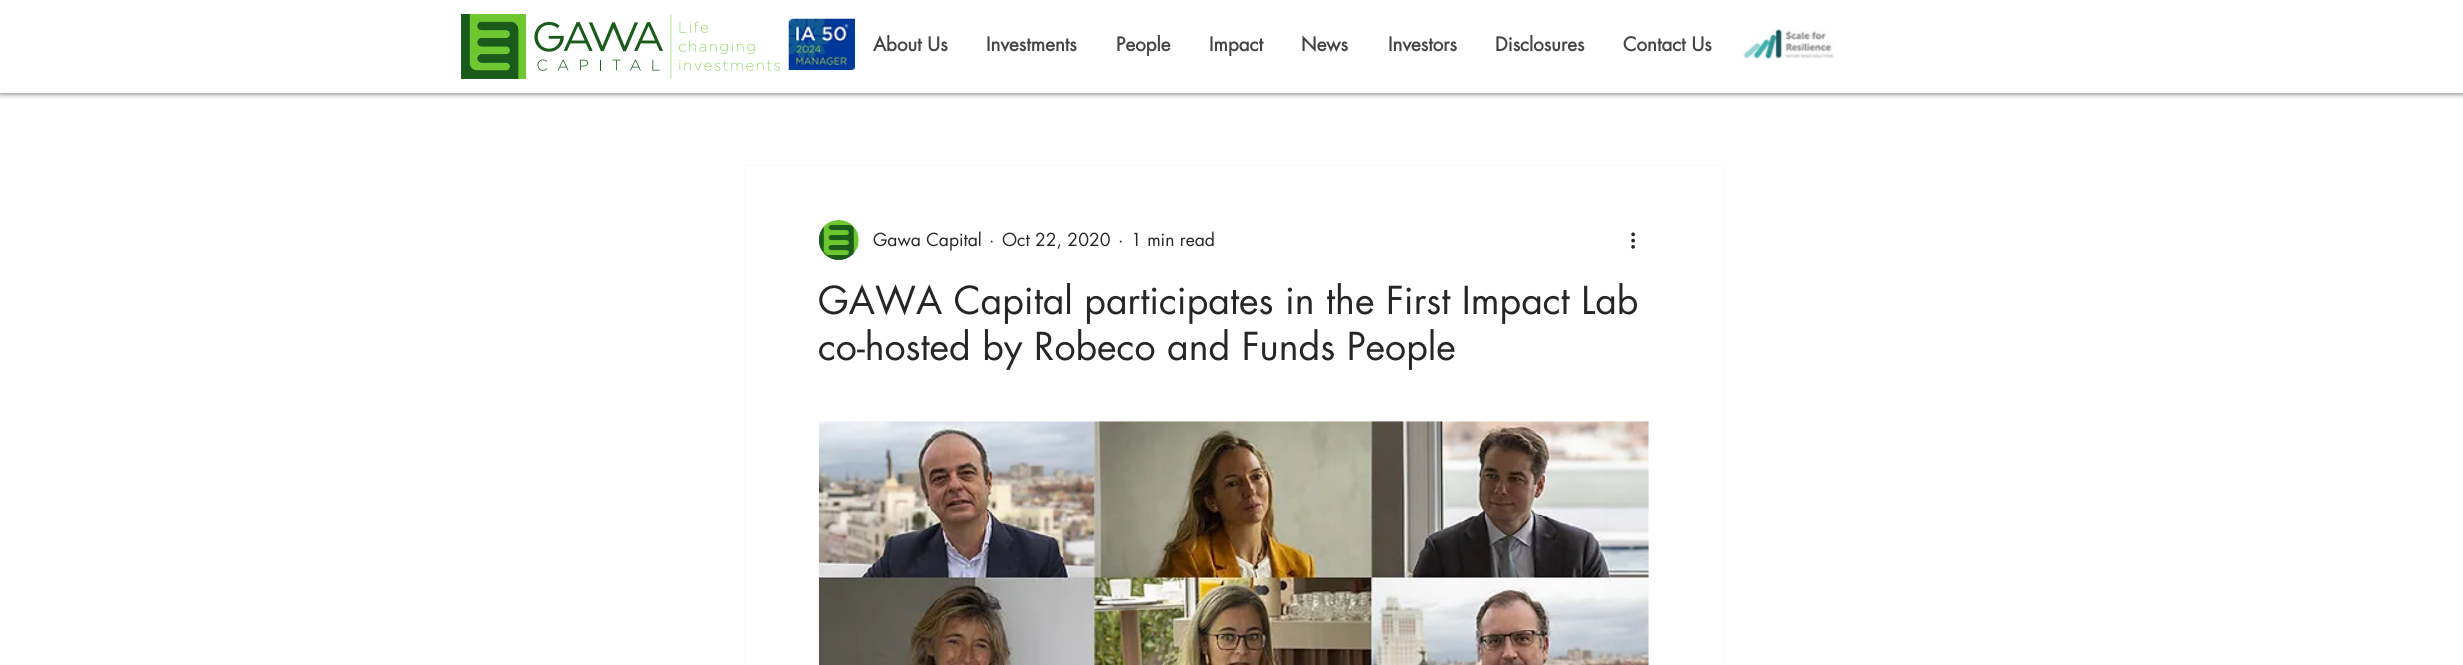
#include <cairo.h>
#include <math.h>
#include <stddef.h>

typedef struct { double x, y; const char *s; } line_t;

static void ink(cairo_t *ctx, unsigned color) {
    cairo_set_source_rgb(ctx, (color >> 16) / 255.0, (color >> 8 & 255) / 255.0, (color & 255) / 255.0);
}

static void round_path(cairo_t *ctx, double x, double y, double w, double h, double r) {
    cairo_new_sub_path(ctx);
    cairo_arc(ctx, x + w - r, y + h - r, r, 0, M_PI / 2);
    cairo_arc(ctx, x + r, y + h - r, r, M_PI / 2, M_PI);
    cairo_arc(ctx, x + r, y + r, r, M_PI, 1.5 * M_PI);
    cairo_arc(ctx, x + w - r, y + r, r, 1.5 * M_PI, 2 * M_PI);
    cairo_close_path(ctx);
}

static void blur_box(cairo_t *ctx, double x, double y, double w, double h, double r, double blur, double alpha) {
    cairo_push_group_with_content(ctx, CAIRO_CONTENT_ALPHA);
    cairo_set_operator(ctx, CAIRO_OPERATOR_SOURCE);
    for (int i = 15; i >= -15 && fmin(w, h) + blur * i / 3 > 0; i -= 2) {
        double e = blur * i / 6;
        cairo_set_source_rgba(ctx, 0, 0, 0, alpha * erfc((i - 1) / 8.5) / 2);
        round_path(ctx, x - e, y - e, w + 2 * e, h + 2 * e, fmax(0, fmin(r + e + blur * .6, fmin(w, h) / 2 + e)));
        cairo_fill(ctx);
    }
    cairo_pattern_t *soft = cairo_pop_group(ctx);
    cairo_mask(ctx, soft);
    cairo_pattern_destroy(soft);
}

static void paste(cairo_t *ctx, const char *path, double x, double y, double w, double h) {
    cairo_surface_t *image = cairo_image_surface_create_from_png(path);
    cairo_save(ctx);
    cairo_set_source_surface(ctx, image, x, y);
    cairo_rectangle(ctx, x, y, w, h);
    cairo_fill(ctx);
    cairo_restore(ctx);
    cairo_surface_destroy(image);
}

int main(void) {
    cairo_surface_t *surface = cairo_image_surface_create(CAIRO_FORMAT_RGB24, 2463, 665);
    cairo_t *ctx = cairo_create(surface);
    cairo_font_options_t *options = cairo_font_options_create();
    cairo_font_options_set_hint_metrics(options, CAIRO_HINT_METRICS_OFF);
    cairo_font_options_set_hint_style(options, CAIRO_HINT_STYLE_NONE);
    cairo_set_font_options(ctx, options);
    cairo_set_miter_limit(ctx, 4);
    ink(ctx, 0xFFFFFF);
    cairo_paint(ctx);
    ink(ctx, 0x000000);
    blur_box(ctx, 0, 0, 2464, 93, 0, 3, 0.7);
    ink(ctx, 0xFFFFFF);
    cairo_rectangle(ctx, 0, 0, 2463, 93);
    cairo_fill(ctx);
    paste(ctx, "media/1.png", 461, 14, 319, 65);
    paste(ctx, "media/2.png", 788, 18, 67, 52);
    cairo_select_font_face(ctx, "futura", CAIRO_FONT_SLANT_NORMAL, CAIRO_FONT_WEIGHT_BOLD);
    cairo_set_font_size(ctx, 18.75);
    ink(ctx, 0x444444);
    {
        static const line_t items[] = {
            {873, 51, "About Us"},
            {986, 51, "Investments"},
            {1116, 51, "People"},
            {1209, 51, "Impact"},
            {1301, 51, "News"},
            {1388, 51, "Investors"},
            {1495, 51, "Disclosures"},
            {1623, 51, "Contact Us"},
        };
        for (size_t i = 0; i < sizeof items / sizeof *items; i++) {
            cairo_move_to(ctx, items[i].x, items[i].y);
            cairo_show_text(ctx, items[i].s);
        }
    }
    paste(ctx, "media/3.png", 1743, 29, 91, 31);
    cairo_rectangle(ctx, 744.5, 165.5, 979, 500);
    ink(ctx, 0xFBFBFB);
    cairo_set_line_width(ctx, 1);
    cairo_stroke(ctx);
    paste(ctx, "media/4.png", 818, 220, 41, 40);
    cairo_select_font_face(ctx, "futura", CAIRO_FONT_SLANT_NORMAL, CAIRO_FONT_WEIGHT_NORMAL);
    cairo_set_font_size(ctx, 17.5);
    ink(ctx, 0x262626);
    {
        static const line_t items[] = {
            {873, 246, "Gawa Capital"},
            {989, 246, "·"},
            {1002, 246, "Oct 22, 2020"},
            {1118, 246, "·"},
            {1131, 246, "1 min read"},
        };
        for (size_t i = 0; i < sizeof items / sizeof *items; i++) {
            cairo_move_to(ctx, items[i].x, items[i].y);
            cairo_show_text(ctx, items[i].s);
        }
    }
    paste(ctx, "media/5.png", 1631, 232, 4, 17);
    cairo_set_font_size(ctx, 37.5);
    cairo_move_to(ctx, 818, 314);
    cairo_show_text(ctx, "GAWA Capital participates in the First Impact Lab");
    cairo_move_to(ctx, 818, 360);
    cairo_show_text(ctx, "co-hosted by Robeco and Funds People");
    paste(ctx, "media/6.png", 818, 421, 831, 244);
    cairo_surface_write_to_png(surface, "image.png");
    cairo_font_options_destroy(options);
    cairo_destroy(ctx);
    cairo_surface_destroy(surface);
    return 0;
}
